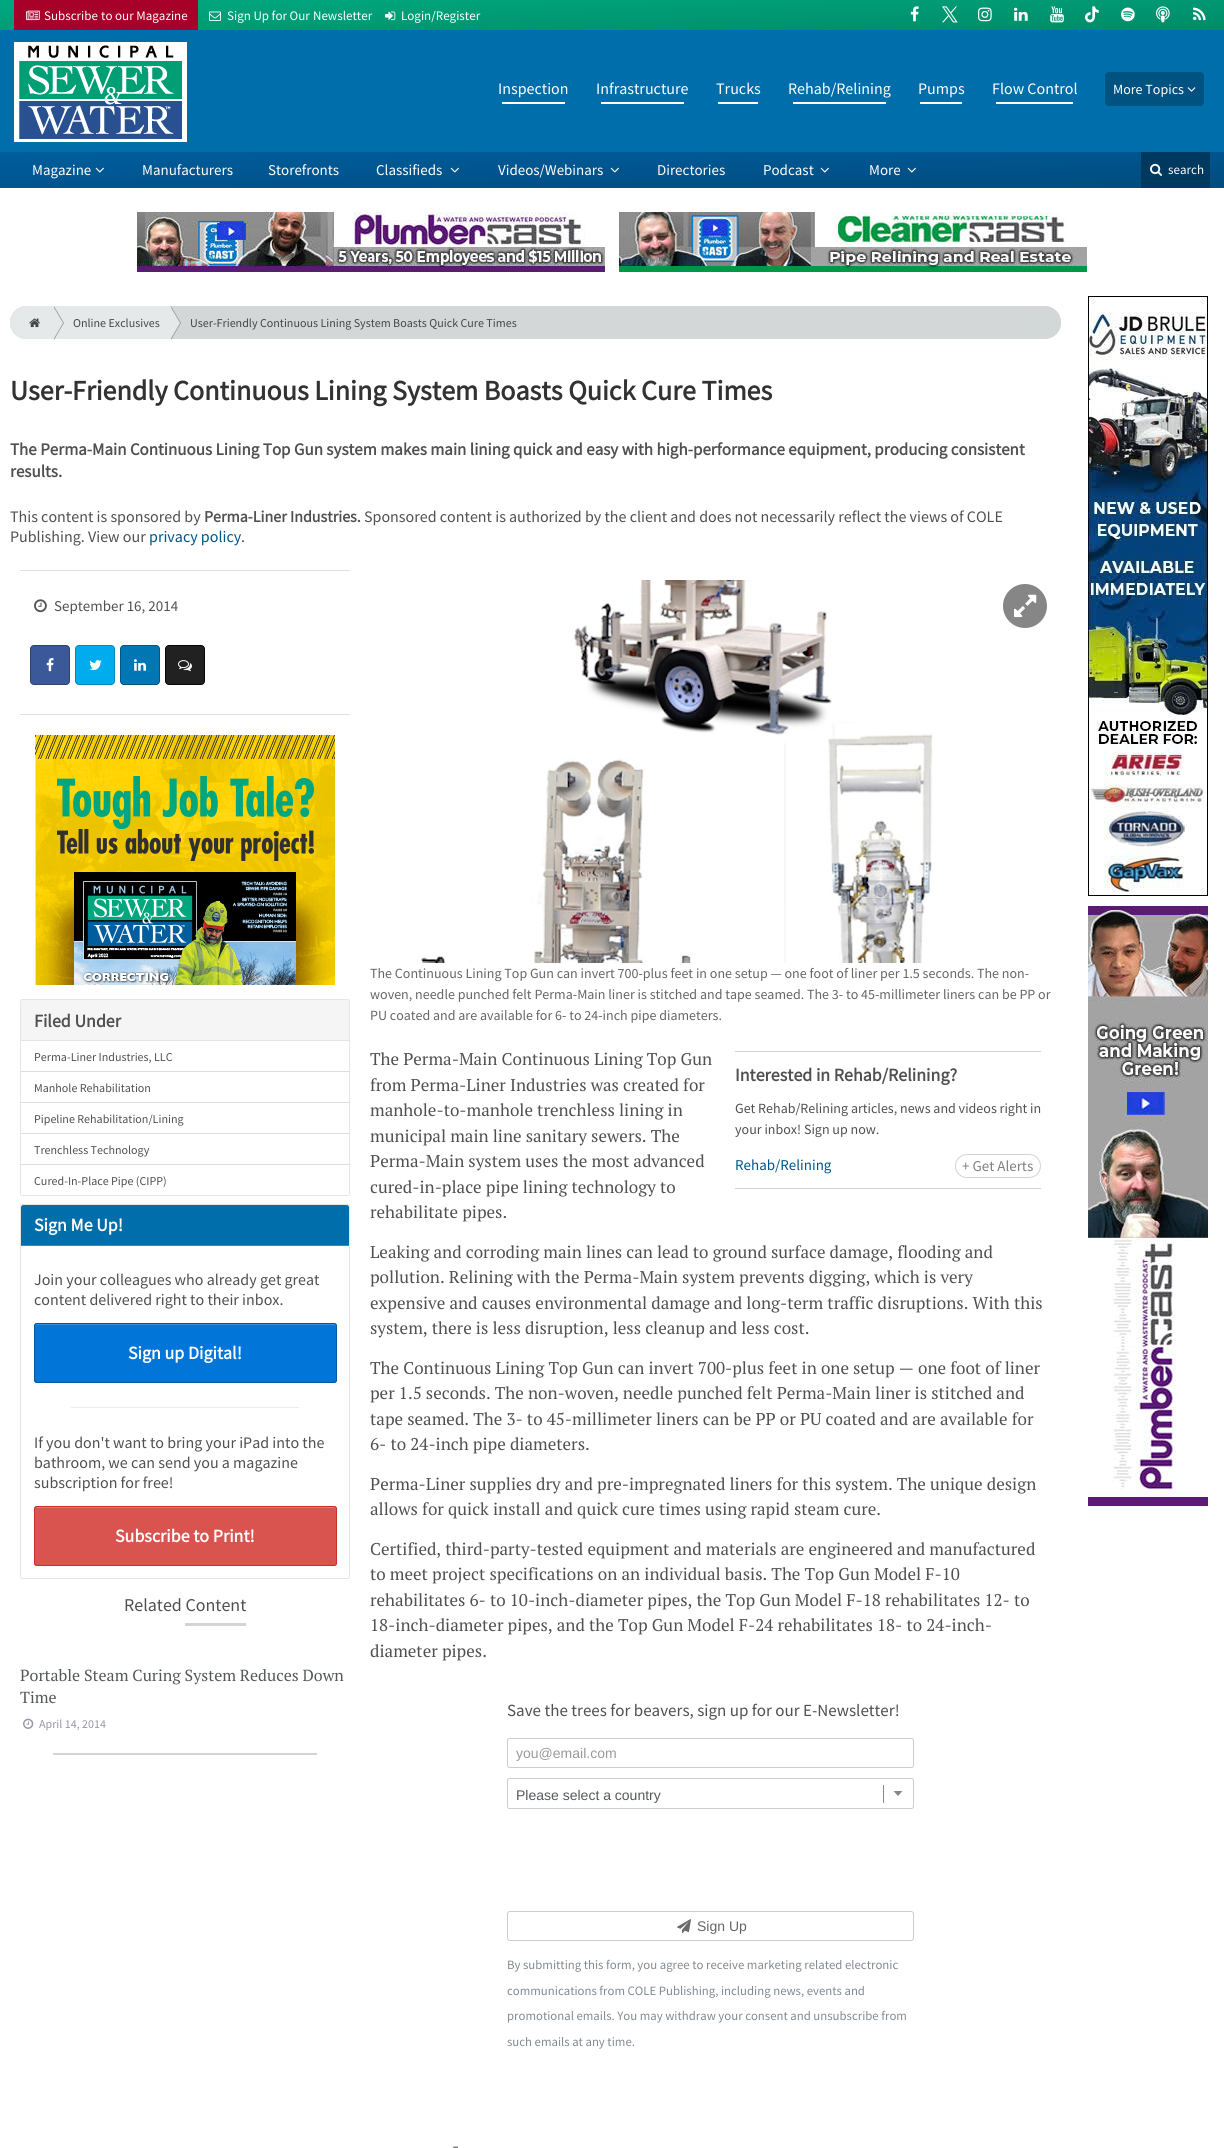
#include <cairo.h>
#include <math.h>
#include <stddef.h>

typedef struct { double x, y; const char *s; } line_t;

static void ink(cairo_t *ctx, unsigned color) {
    cairo_set_source_rgb(ctx, (color >> 16) / 255.0, (color >> 8 & 255) / 255.0, (color & 255) / 255.0);
}

static void round_path(cairo_t *ctx, double x, double y, double w, double h, double r) {
    cairo_new_sub_path(ctx);
    cairo_arc(ctx, x + w - r, y + h - r, r, 0, M_PI / 2);
    cairo_arc(ctx, x + r, y + h - r, r, M_PI / 2, M_PI);
    cairo_arc(ctx, x + r, y + r, r, M_PI, 1.5 * M_PI);
    cairo_arc(ctx, x + w - r, y + r, r, 1.5 * M_PI, 2 * M_PI);
    cairo_close_path(ctx);
}

static void paste(cairo_t *ctx, const char *path, double x, double y, double w, double h) {
    cairo_surface_t *image = cairo_image_surface_create_from_png(path);
    cairo_save(ctx);
    cairo_set_source_surface(ctx, image, x, y);
    cairo_rectangle(ctx, x, y, w, h);
    cairo_fill(ctx);
    cairo_restore(ctx);
    cairo_surface_destroy(image);
}

int main(void) {
    cairo_surface_t *surface = cairo_image_surface_create(CAIRO_FORMAT_RGB24, 1224, 2148);
    cairo_t *ctx = cairo_create(surface);
    cairo_font_options_t *options = cairo_font_options_create();
    cairo_font_options_set_hint_metrics(options, CAIRO_HINT_METRICS_OFF);
    cairo_font_options_set_hint_style(options, CAIRO_HINT_STYLE_NONE);
    cairo_set_font_options(ctx, options);
    cairo_set_miter_limit(ctx, 4);
    cairo_pattern_t *gradient;
    ink(ctx, 0xFFFFFF);
    cairo_paint(ctx);
    ink(ctx, 0x006EAA);
    cairo_rectangle(ctx, 0, 30, 1224, 122);
    cairo_fill(ctx);
    gradient = cairo_pattern_create_linear(611, -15, 613, 45);
    cairo_pattern_add_color_stop_rgba(gradient, 0, 0, 0.655, 0.494, 1);
    cairo_pattern_add_color_stop_rgba(gradient, 1, 0, 0.553, 0.416, 1);
    cairo_set_source(ctx, gradient);
    cairo_pattern_destroy(gradient);
    cairo_rectangle(ctx, 0, 0, 1224, 30);
    cairo_fill(ctx);
    ink(ctx, 0xA70029);
    cairo_rectangle(ctx, 14, 0, 184, 30);
    cairo_fill(ctx);
    paste(ctx, "media/1.png", 26, 10, 14, 11);
    cairo_select_font_face(ctx, "Source Sans Pro", CAIRO_FONT_SLANT_NORMAL, CAIRO_FONT_WEIGHT_NORMAL);
    cairo_set_font_size(ctx, 13);
    ink(ctx, 0xFFFFFF);
    cairo_move_to(ctx, 44, 20);
    cairo_show_text(ctx, "Subscribe");
    cairo_move_to(ctx, 101, 20);
    cairo_show_text(ctx, "to our Magazine");
    paste(ctx, "media/2.png", 209, 11, 12, 10);
    cairo_move_to(ctx, 227, 20);
    cairo_show_text(ctx, "Sign Up for Our");
    cairo_move_to(ctx, 313, 20);
    cairo_show_text(ctx, "Newsletter");
    paste(ctx, "media/3.png", 385, 11, 11, 10);
    cairo_move_to(ctx, 401, 20);
    cairo_show_text(ctx, "Login/Register");
    paste(ctx, "media/4.png", 910, 6, 9, 16);
    paste(ctx, "media/5.png", 942, 6, 16, 17);
    paste(ctx, "media/6.png", 978, 7, 14, 15);
    paste(ctx, "media/7.png", 1014, 7, 14, 14);
    paste(ctx, "media/8.png", 1050, 6, 14, 17);
    paste(ctx, "media/9.png", 1085, 6, 14, 17);
    paste(ctx, "media/10.png", 1121, 7, 14, 15);
    paste(ctx, "media/11.png", 1156, 6, 14, 17);
    paste(ctx, "media/12.png", 1193, 7, 13, 14);
    paste(ctx, "media/13.png", 14, 42, 173, 100);
    cairo_set_font_size(ctx, 16);
    cairo_move_to(ctx, 498, 94);
    cairo_show_text(ctx, "Inspection");
    cairo_rectangle(ctx, 502, 102, 63, 2);
    cairo_fill(ctx);
    cairo_move_to(ctx, 596, 94);
    cairo_show_text(ctx, "Infrastructure");
    cairo_rectangle(ctx, 601, 102, 83, 2);
    cairo_fill(ctx);
    cairo_move_to(ctx, 716, 94);
    cairo_show_text(ctx, "Trucks");
    cairo_rectangle(ctx, 718, 102, 40, 2);
    cairo_fill(ctx);
    cairo_move_to(ctx, 788, 94);
    cairo_show_text(ctx, "Rehab/Relining");
    cairo_rectangle(ctx, 793, 102, 93, 2);
    cairo_fill(ctx);
    cairo_move_to(ctx, 918, 94);
    cairo_show_text(ctx, "Pumps");
    cairo_rectangle(ctx, 920, 102, 42, 2);
    cairo_fill(ctx);
    cairo_move_to(ctx, 992, 94);
    cairo_show_text(ctx, "Flow Control");
    cairo_rectangle(ctx, 996, 102, 77, 2);
    cairo_fill(ctx);
    ink(ctx, 0x005381);
    round_path(ctx, 1105, 72, 99, 34, 4);
    cairo_fill(ctx);
    cairo_set_font_size(ctx, 14);
    ink(ctx, 0xFFFFFF);
    cairo_move_to(ctx, 1113, 94);
    cairo_show_text(ctx, "More Topics");
    paste(ctx, "media/14.png", 1187, 87, 9, 5);
    gradient = cairo_pattern_create_linear(611, 134, 613, 206);
    cairo_pattern_add_color_stop_rgba(gradient, 0, 0, 0.369, 0.616, 1);
    cairo_pattern_add_color_stop_rgba(gradient, 1, 0, 0.294, 0.494, 1);
    cairo_set_source(ctx, gradient);
    cairo_pattern_destroy(gradient);
    cairo_rectangle(ctx, 0, 152, 1224, 36);
    cairo_fill(ctx);
    cairo_set_font_size(ctx, 15);
    ink(ctx, 0xFFFFFF);
    cairo_move_to(ctx, 32, 175);
    cairo_show_text(ctx, "Magazine");
    paste(ctx, "media/15.png", 95, 167, 9, 6);
    {
        static const line_t items[] = {
            {142, 175, "Manufacturers"},
            {268, 175, "Storefronts"},
            {376, 175, "Classifieds"},
        };
        for (size_t i = 0; i < sizeof items / sizeof *items; i++) {
            cairo_move_to(ctx, items[i].x, items[i].y);
            cairo_show_text(ctx, items[i].s);
        }
    }
    paste(ctx, "media/16.png", 450, 167, 9, 6);
    cairo_move_to(ctx, 498, 175);
    cairo_show_text(ctx, "Videos/Webinars");
    paste(ctx, "media/17.png", 610, 167, 9, 6);
    cairo_move_to(ctx, 657, 175);
    cairo_show_text(ctx, "Directories");
    cairo_move_to(ctx, 763, 175);
    cairo_show_text(ctx, "Podcast");
    paste(ctx, "media/18.png", 820, 167, 9, 6);
    cairo_move_to(ctx, 869, 175);
    cairo_show_text(ctx, "More");
    paste(ctx, "media/19.png", 907, 167, 9, 6);
    ink(ctx, 0x00395F);
    cairo_rectangle(ctx, 1141, 152, 69, 36);
    cairo_fill(ctx);
    paste(ctx, "media/20.png", 1150, 163, 12, 13);
    cairo_set_font_size(ctx, 13);
    ink(ctx, 0xFFFFFF);
    cairo_move_to(ctx, 1168, 174);
    cairo_show_text(ctx, "search");
    paste(ctx, "media/21.png", 137, 212, 468, 60);
    paste(ctx, "media/22.png", 619, 212, 468, 60);
    ink(ctx, 0xD3D7D7);
    round_path(ctx, 10, 306, 1051, 33, 16.5);
    cairo_fill(ctx);
    ink(ctx, 0xE5E9E9);
    cairo_new_path(ctx);
    cairo_move_to(ctx, 26.5, 306);
    cairo_line_to(ctx, 53, 306);
    cairo_line_to(ctx, 53, 339);
    cairo_line_to(ctx, 26.5, 339);
    cairo_curve_to(ctx, 17.5, 339, 10, 331.5, 10, 322.5);
    cairo_curve_to(ctx, 10, 313.5, 17.5, 306, 26.5, 306);
    cairo_close_path(ctx);
    cairo_fill(ctx);
    cairo_rectangle(ctx, 53, 306, 117, 33);
    cairo_fill(ctx);
    ink(ctx, 0x9C9E9E);
    cairo_new_path(ctx);
    cairo_move_to(ctx, 54, 340);
    cairo_line_to(ctx, 54, 306);
    cairo_line_to(ctx, 64, 323);
    cairo_close_path(ctx);
    cairo_fill(ctx);
    ink(ctx, 0xE5E9E9);
    cairo_new_path(ctx);
    cairo_move_to(ctx, 53, 340);
    cairo_line_to(ctx, 53, 306);
    cairo_line_to(ctx, 63, 323);
    cairo_close_path(ctx);
    cairo_fill(ctx);
    paste(ctx, "media/23.png", 29, 318, 11, 10);
    ink(ctx, 0x9C9E9E);
    cairo_new_path(ctx);
    cairo_move_to(ctx, 171, 340);
    cairo_line_to(ctx, 171, 306);
    cairo_line_to(ctx, 181, 323);
    cairo_close_path(ctx);
    cairo_fill(ctx);
    ink(ctx, 0xE5E9E9);
    cairo_new_path(ctx);
    cairo_move_to(ctx, 170, 340);
    cairo_line_to(ctx, 170, 306);
    cairo_line_to(ctx, 180, 323);
    cairo_close_path(ctx);
    cairo_fill(ctx);
    cairo_set_font_size(ctx, 12);
    ink(ctx, 0x454545);
    cairo_move_to(ctx, 73, 327);
    cairo_show_text(ctx, "Online Exclusives");
    cairo_move_to(ctx, 190, 327);
    cairo_show_text(ctx, "User-Friendly Continuous Lining System Boasts Quick Cure Times");
    gradient = cairo_pattern_create_linear(1001, 323, 1061, 323);
    cairo_pattern_add_color_stop_rgba(gradient, 0, 0.827, 0.843, 0.843, 0);
    cairo_pattern_add_color_stop_rgba(gradient, 1, 0.827, 0.843, 0.843, 1);
    cairo_set_source(ctx, gradient);
    cairo_pattern_destroy(gradient);
    cairo_new_path(ctx);
    cairo_move_to(ctx, 1001, 306);
    cairo_line_to(ctx, 1044.5, 306);
    cairo_curve_to(ctx, 1053.5, 306, 1061, 313.5, 1061, 322.5);
    cairo_curve_to(ctx, 1061, 331.5, 1053.5, 339, 1044.5, 339);
    cairo_line_to(ctx, 1001, 339);
    cairo_close_path(ctx);
    cairo_fill(ctx);
    cairo_select_font_face(ctx, "Source Sans Pro", CAIRO_FONT_SLANT_NORMAL, CAIRO_FONT_WEIGHT_BOLD);
    cairo_set_font_size(ctx, 28);
    ink(ctx, 0x323232);
    cairo_move_to(ctx, 10, 400);
    cairo_show_text(ctx, "User-Friendly Continuous Lining System Boasts Quick Cure Times");
    cairo_set_font_size(ctx, 17);
    ink(ctx, 0x505050);
    cairo_move_to(ctx, 10, 455);
    cairo_show_text(ctx, "The Perma-Main Continuous Lining Top Gun system makes main lining quick and easy with high-performance equipment, producing consistent");
    cairo_move_to(ctx, 10, 477);
    cairo_show_text(ctx, "results.");
    cairo_select_font_face(ctx, "Source Sans Pro", CAIRO_FONT_SLANT_NORMAL, CAIRO_FONT_WEIGHT_NORMAL);
    cairo_set_font_size(ctx, 16);
    cairo_move_to(ctx, 10, 522);
    cairo_show_text(ctx, "This content is sponsored by");
    cairo_select_font_face(ctx, "Source Sans Pro", CAIRO_FONT_SLANT_NORMAL, CAIRO_FONT_WEIGHT_BOLD);
    cairo_move_to(ctx, 204, 522);
    cairo_show_text(ctx, "Perma-Liner Industries.");
    cairo_select_font_face(ctx, "Source Sans Pro", CAIRO_FONT_SLANT_NORMAL, CAIRO_FONT_WEIGHT_NORMAL);
    cairo_move_to(ctx, 364, 522);
    cairo_show_text(ctx, "Sponsored content is authorized by the client and does not necessarily reflect the views of COLE");
    cairo_move_to(ctx, 10, 542);
    cairo_show_text(ctx, "Publishing. View our");
    ink(ctx, 0x005586);
    cairo_move_to(ctx, 149, 542);
    cairo_show_text(ctx, "privacy policy");
    ink(ctx, 0x505050);
    cairo_move_to(ctx, 241, 542);
    cairo_show_text(ctx, ".");
    ink(ctx, 0xE1E1E1);
    cairo_rectangle(ctx, 20, 570, 330, 1);
    cairo_fill(ctx);
    cairo_rectangle(ctx, 20, 714, 330, 1);
    cairo_fill(ctx);
    paste(ctx, "media/24.png", 34, 599, 13, 14);
    cairo_set_font_size(ctx, 15);
    ink(ctx, 0x505050);
    cairo_move_to(ctx, 54, 611);
    cairo_show_text(ctx, "September 16, 2014");
    ink(ctx, 0x3B5999);
    round_path(ctx, 30.5, 645.5, 39, 39, 3.5);
    cairo_fill_preserve(ctx);
    ink(ctx, 0x2C4374);
    cairo_set_line_width(ctx, 1);
    cairo_stroke(ctx);
    paste(ctx, "media/25.png", 46, 658, 8, 14);
    ink(ctx, 0x00ACEE);
    round_path(ctx, 75.5, 645.5, 39, 39, 3.5);
    cairo_fill_preserve(ctx);
    ink(ctx, 0x0087BB);
    cairo_stroke(ctx);
    paste(ctx, "media/26.png", 89, 660, 13, 11);
    ink(ctx, 0x0077B5);
    round_path(ctx, 120.5, 645.5, 39, 39, 3.5);
    cairo_fill_preserve(ctx);
    ink(ctx, 0x005582);
    cairo_stroke(ctx);
    paste(ctx, "media/27.png", 134, 659, 12, 12);
    ink(ctx, 0x212121);
    round_path(ctx, 165.5, 645.5, 39, 39, 3.5);
    cairo_fill_preserve(ctx);
    ink(ctx, 0x070707);
    cairo_stroke(ctx);
    paste(ctx, "media/28.png", 178, 660, 14, 12);
    paste(ctx, "media/29.png", 35, 735, 300, 250);
    round_path(ctx, 20.5, 999.5, 329, 196, 2);
    ink(ctx, 0xE5E5E5);
    cairo_stroke(ctx);
    ink(ctx, 0xF5F5F5);
    cairo_new_path(ctx);
    cairo_move_to(ctx, 23.5, 1000);
    cairo_line_to(ctx, 346.5, 1000);
    cairo_curve_to(ctx, 348, 1000, 349, 1001, 349, 1002.5);
    cairo_line_to(ctx, 349, 1041);
    cairo_line_to(ctx, 21, 1041);
    cairo_line_to(ctx, 21, 1002.5);
    cairo_curve_to(ctx, 21, 1001, 22, 1000, 23.5, 1000);
    cairo_close_path(ctx);
    cairo_fill(ctx);
    ink(ctx, 0xE5E5E5);
    cairo_rectangle(ctx, 21, 1040, 328, 1);
    cairo_fill(ctx);
    cairo_select_font_face(ctx, "Source Sans Pro", CAIRO_FONT_SLANT_NORMAL, CAIRO_FONT_WEIGHT_BOLD);
    cairo_set_font_size(ctx, 18);
    ink(ctx, 0x505050);
    cairo_move_to(ctx, 34, 1027);
    cairo_show_text(ctx, "Filed Under");
    ink(ctx, 0xDDDDDD);
    cairo_rectangle(ctx, 21, 1071, 328, 1);
    cairo_fill(ctx);
    cairo_select_font_face(ctx, "Source Sans Pro", CAIRO_FONT_SLANT_NORMAL, CAIRO_FONT_WEIGHT_NORMAL);
    cairo_set_font_size(ctx, 12);
    ink(ctx, 0x505050);
    cairo_move_to(ctx, 34, 1061);
    cairo_show_text(ctx, "Perma-Liner Industries, LLC");
    ink(ctx, 0xDDDDDD);
    cairo_rectangle(ctx, 21, 1102, 328, 1);
    cairo_fill(ctx);
    ink(ctx, 0x505050);
    cairo_move_to(ctx, 34, 1092);
    cairo_show_text(ctx, "Manhole Rehabilitation");
    ink(ctx, 0xDDDDDD);
    cairo_rectangle(ctx, 21, 1133, 328, 1);
    cairo_fill(ctx);
    ink(ctx, 0x505050);
    cairo_move_to(ctx, 34, 1123);
    cairo_show_text(ctx, "Pipeline Rehabilitation/Lining");
    cairo_move_to(ctx, 34, 1154);
    cairo_show_text(ctx, "Trenchless Technology");
    ink(ctx, 0xFFFFFF);
    cairo_rectangle(ctx, 21, 1194, 328, 1);
    cairo_fill(ctx);
    ink(ctx, 0xDDDDDD);
    cairo_rectangle(ctx, 21, 1164, 328, 1);
    cairo_fill(ctx);
    ink(ctx, 0x505050);
    cairo_move_to(ctx, 34, 1185);
    cairo_show_text(ctx, "Cured-In-Place Pipe (CIPP)");
    round_path(ctx, 20.5, 1204.5, 329, 374, 2);
    ink(ctx, 0xE5E5E5);
    cairo_stroke(ctx);
    ink(ctx, 0x006EAA);
    cairo_new_path(ctx);
    cairo_move_to(ctx, 23.5, 1205);
    cairo_line_to(ctx, 346.5, 1205);
    cairo_curve_to(ctx, 348, 1205, 349, 1206, 349, 1207.5);
    cairo_line_to(ctx, 349, 1246);
    cairo_line_to(ctx, 21, 1246);
    cairo_line_to(ctx, 21, 1207.5);
    cairo_curve_to(ctx, 21, 1206, 22, 1205, 23.5, 1205);
    cairo_close_path(ctx);
    cairo_fill(ctx);
    ink(ctx, 0x338BBB);
    cairo_rectangle(ctx, 21, 1245, 328, 1);
    cairo_fill(ctx);
    cairo_select_font_face(ctx, "Source Sans Pro", CAIRO_FONT_SLANT_NORMAL, CAIRO_FONT_WEIGHT_BOLD);
    cairo_set_font_size(ctx, 18);
    ink(ctx, 0xFFFFFF);
    cairo_move_to(ctx, 34, 1231);
    cairo_show_text(ctx, "Sign Me Up!");
    cairo_select_font_face(ctx, "Source Sans Pro", CAIRO_FONT_SLANT_NORMAL, CAIRO_FONT_WEIGHT_NORMAL);
    cairo_set_font_size(ctx, 16);
    ink(ctx, 0x505050);
    cairo_move_to(ctx, 34, 1285);
    cairo_show_text(ctx, "Join your colleagues who already get great");
    cairo_move_to(ctx, 34, 1305);
    cairo_show_text(ctx, "content delivered right to their inbox.");
    ink(ctx, 0x0275D8);
    round_path(ctx, 34, 1323, 303, 60, 3);
    cairo_fill(ctx);
    ink(ctx, 0x3591E0);
    cairo_new_path(ctx);
    cairo_move_to(ctx, 37, 1325);
    cairo_line_to(ctx, 334, 1325);
    cairo_curve_to(ctx, 335, 1325, 336, 1326, 336, 1327);
    cairo_curve_to(ctx, 336, 1326, 336, 1324, 334, 1324);
    cairo_line_to(ctx, 36, 1324);
    cairo_line_to(ctx, 35, 1327);
    cairo_curve_to(ctx, 35, 1326, 36, 1325, 37, 1325);
    cairo_close_path(ctx);
    cairo_fill(ctx);
    round_path(ctx, 34.5, 1323.5, 302, 59, 2.5);
    ink(ctx, 0x0159A5);
    cairo_stroke(ctx);
    cairo_select_font_face(ctx, "Source Sans Pro", CAIRO_FONT_SLANT_NORMAL, CAIRO_FONT_WEIGHT_BOLD);
    cairo_set_font_size(ctx, 18);
    ink(ctx, 0xFFFFFF);
    cairo_move_to(ctx, 128, 1359);
    cairo_show_text(ctx, "Sign up Digital!");
    ink(ctx, 0xECECEC);
    cairo_rectangle(ctx, 71, 1407, 228, 1);
    cairo_fill(ctx);
    cairo_select_font_face(ctx, "Source Sans Pro", CAIRO_FONT_SLANT_NORMAL, CAIRO_FONT_WEIGHT_NORMAL);
    cairo_set_font_size(ctx, 16);
    ink(ctx, 0x505050);
    {
        static const line_t items[] = {
            {34, 1448, "If you don't want to bring your iPad into the"},
            {34, 1468, "bathroom, we can send you a magazine"},
            {34, 1488, "subscription for free!"},
        };
        for (size_t i = 0; i < sizeof items / sizeof *items; i++) {
            cairo_move_to(ctx, items[i].x, items[i].y);
            cairo_show_text(ctx, items[i].s);
        }
    }
    ink(ctx, 0xD9534F);
    round_path(ctx, 34, 1506, 303, 60, 3);
    cairo_fill(ctx);
    ink(ctx, 0xE17572);
    cairo_new_path(ctx);
    cairo_move_to(ctx, 37, 1508);
    cairo_line_to(ctx, 334, 1508);
    cairo_curve_to(ctx, 335, 1508, 336, 1509, 336, 1510);
    cairo_curve_to(ctx, 336, 1509, 336, 1507, 334, 1507);
    cairo_line_to(ctx, 36, 1507);
    cairo_line_to(ctx, 35, 1510);
    cairo_curve_to(ctx, 35, 1509, 36, 1508, 37, 1508);
    cairo_close_path(ctx);
    cairo_fill(ctx);
    round_path(ctx, 34.5, 1506.5, 302, 59, 2.5);
    ink(ctx, 0xC9302B);
    cairo_stroke(ctx);
    cairo_select_font_face(ctx, "Source Sans Pro", CAIRO_FONT_SLANT_NORMAL, CAIRO_FONT_WEIGHT_BOLD);
    cairo_set_font_size(ctx, 18);
    ink(ctx, 0xFFFFFF);
    cairo_move_to(ctx, 115, 1542);
    cairo_show_text(ctx, "Subscribe to Print!");
    cairo_select_font_face(ctx, "Source Sans Pro", CAIRO_FONT_SLANT_NORMAL, CAIRO_FONT_WEIGHT_NORMAL);
    ink(ctx, 0x505050);
    cairo_move_to(ctx, 124, 1611);
    cairo_show_text(ctx, "Related Content");
    ink(ctx, 0xD5D4D4);
    cairo_rectangle(ctx, 185, 1623, 61, 3);
    cairo_fill(ctx);
    cairo_select_font_face(ctx, "PT Serif", CAIRO_FONT_SLANT_NORMAL, CAIRO_FONT_WEIGHT_NORMAL);
    cairo_set_font_size(ctx, 16);
    ink(ctx, 0x55585B);
    cairo_move_to(ctx, 20, 1681);
    cairo_show_text(ctx, "Portable Steam Curing System Reduces Down");
    cairo_move_to(ctx, 20, 1703);
    cairo_show_text(ctx, "Time");
    paste(ctx, "media/30.png", 23, 1718, 11, 11);
    cairo_select_font_face(ctx, "Source Sans Pro", CAIRO_FONT_SLANT_NORMAL, CAIRO_FONT_WEIGHT_NORMAL);
    cairo_set_font_size(ctx, 12);
    ink(ctx, 0x9797A5);
    cairo_move_to(ctx, 39, 1728);
    cairo_show_text(ctx, "April 14, 2014");
    ink(ctx, 0xD5D4D4);
    cairo_rectangle(ctx, 53, 1753, 264, 2);
    cairo_fill(ctx);
    paste(ctx, "media/31.png", 419, 580, 514, 383);
    ink(ctx, 0x868686);
    cairo_arc(ctx, 1025, 606, 22, 0, 2 * M_PI);
    cairo_fill(ctx);
    paste(ctx, "media/32.png", 1014, 594, 23, 24);
    cairo_set_font_size(ctx, 14);
    ink(ctx, 0x666666);
    {
        static const line_t items[] = {
            {370, 978, "The Continuous Lining Top Gun can invert 700-plus feet in one setup — one foot of liner per 1.5 seconds. The non-"},
            {370, 999, "woven, needle punched felt Perma-Main liner is stitched and tape seamed. The 3- to 45-millimeter liners can be PP or"},
            {370, 1020, "PU coated and are available for 6- to 24-inch pipe diameters."},
        };
        for (size_t i = 0; i < sizeof items / sizeof *items; i++) {
            cairo_move_to(ctx, items[i].x, items[i].y);
            cairo_show_text(ctx, items[i].s);
        }
    }
    cairo_select_font_face(ctx, "PT Serif", CAIRO_FONT_SLANT_NORMAL, CAIRO_FONT_WEIGHT_NORMAL);
    cairo_set_font_size(ctx, 17);
    ink(ctx, 0x505050);
    {
        static const line_t items[] = {
            {370, 1065, "The Perma-Main Continuous Lining Top Gun"},
            {370, 1091, "from Perma-Liner Industries was created for"},
            {370, 1116, "manhole-to-manhole trenchless lining in"},
            {370, 1142, "municipal main line sanitary sewers. The"},
            {370, 1167, "Perma-Main system uses the most advanced"},
            {370, 1193, "cured-in-place pipe lining technology to"},
            {370, 1218, "rehabilitate pipes."},
        };
        for (size_t i = 0; i < sizeof items / sizeof *items; i++) {
            cairo_move_to(ctx, items[i].x, items[i].y);
            cairo_show_text(ctx, items[i].s);
        }
    }
    ink(ctx, 0xD3D3D3);
    cairo_rectangle(ctx, 735, 1051, 306, 1);
    cairo_fill(ctx);
    cairo_rectangle(ctx, 735, 1188, 306, 1);
    cairo_fill(ctx);
    cairo_select_font_face(ctx, "Source Sans Pro", CAIRO_FONT_SLANT_NORMAL, CAIRO_FONT_WEIGHT_BOLD);
    cairo_set_font_size(ctx, 18);
    ink(ctx, 0x505050);
    cairo_move_to(ctx, 735, 1081);
    cairo_show_text(ctx, "Interested in Rehab/Relining?");
    cairo_select_font_face(ctx, "Source Sans Pro", CAIRO_FONT_SLANT_NORMAL, CAIRO_FONT_WEIGHT_NORMAL);
    cairo_set_font_size(ctx, 14);
    cairo_move_to(ctx, 735, 1113);
    cairo_show_text(ctx, "Get Rehab/Relining articles, news and videos right in");
    cairo_move_to(ctx, 735, 1134);
    cairo_show_text(ctx, "your inbox! Sign up now.");
    cairo_set_font_size(ctx, 15);
    ink(ctx, 0x005586);
    cairo_move_to(ctx, 735, 1170);
    cairo_show_text(ctx, "Rehab/Relining");
    round_path(ctx, 955.5, 1154.5, 85, 23, 11.5);
    ink(ctx, 0xD3D3D3);
    cairo_stroke(ctx);
    ink(ctx, 0x808080);
    cairo_move_to(ctx, 962, 1171);
    cairo_show_text(ctx, "+ Get Alerts");
    cairo_select_font_face(ctx, "PT Serif", CAIRO_FONT_SLANT_NORMAL, CAIRO_FONT_WEIGHT_NORMAL);
    cairo_set_font_size(ctx, 17);
    ink(ctx, 0x505050);
    {
        static const line_t items[] = {
            {370, 1258, "Leaking and corroding main lines can lead to ground surface damage, flooding and"},
            {370, 1283, "pollution. Relining with the Perma-Main system prevents digging, which is very"},
            {370, 1309, "expensive and causes environmental damage and long-term traffic disruptions. With this"},
            {370, 1334, "system, there is less disruption, less cleanup and less cost."},
            {370, 1374, "The Continuous Lining Top Gun can invert 700-plus feet in one setup — one foot of liner"},
            {370, 1399, "per 1.5 seconds. The non-woven, needle punched felt Perma-Main liner is stitched and"},
            {370, 1425, "tape seamed. The 3- to 45-millimeter liners can be PP or PU coated and are available for"},
            {370, 1450, "6- to 24-inch pipe diameters."},
            {370, 1490, "Perma-Liner supplies dry and pre-impregnated liners for this system. The unique design"},
            {370, 1515, "allows for quick install and quick cure times using rapid steam cure."},
            {370, 1555, "Certified, third-party-tested equipment and materials are engineered and manufactured"},
            {370, 1580, "to meet project specifications on an individual basis. The Top Gun Model F-10"},
            {370, 1606, "rehabilitates 6- to 10-inch-diameter pipes, the Top Gun Model F-18 rehabilitates 12- to"},
            {370, 1631, "18-inch-diameter pipes, and the Top Gun Model F-24 rehabilitates 18- to 24-inch-"},
            {370, 1657, "diameter pipes."},
        };
        for (size_t i = 0; i < sizeof items / sizeof *items; i++) {
            cairo_move_to(ctx, items[i].x, items[i].y);
            cairo_show_text(ctx, items[i].s);
        }
    }
    cairo_select_font_face(ctx, "Source Sans Pro", CAIRO_FONT_SLANT_NORMAL, CAIRO_FONT_WEIGHT_NORMAL);
    cairo_move_to(ctx, 507, 1716);
    cairo_show_text(ctx, "Save the trees for beavers, sign up for our E-Newsletter!");
    round_path(ctx, 507.5, 1738.5, 406, 29, 2);
    ink(ctx, 0xCCCCCC);
    cairo_stroke(ctx);
    cairo_select_font_face(ctx, "Liberation Sans", CAIRO_FONT_SLANT_NORMAL, CAIRO_FONT_WEIGHT_NORMAL);
    cairo_set_font_size(ctx, 14);
    ink(ctx, 0x999999);
    cairo_move_to(ctx, 516, 1758);
    cairo_show_text(ctx, "you@email.com");
    paste(ctx, "media/33.png", 883, 1785, 20, 18);
    round_path(ctx, 507.5, 1778.5, 406, 30, 2);
    ink(ctx, 0xCCCCCC);
    cairo_stroke(ctx);
    ink(ctx, 0x55585B);
    cairo_move_to(ctx, 516, 1800);
    cairo_show_text(ctx, "Please select a country");
    round_path(ctx, 507.5, 1911.5, 406, 29, 2.5);
    ink(ctx, 0xCCCCCC);
    cairo_stroke(ctx);
    paste(ctx, "media/34.png", 677, 1919, 14, 14);
    ink(ctx, 0x666666);
    cairo_move_to(ctx, 697, 1931);
    cairo_show_text(ctx, "Sign Up");
    cairo_select_font_face(ctx, "Source Sans Pro", CAIRO_FONT_SLANT_NORMAL, CAIRO_FONT_WEIGHT_NORMAL);
    cairo_set_font_size(ctx, 12.75);
    ink(ctx, 0x818A91);
    {
        static const line_t items[] = {
            {507, 1969, "By submitting this form, you agree to receive marketing related electronic"},
            {507, 1995, "communications from COLE Publishing, including news, events and"},
            {507, 2020, "promotional emails. You may withdraw your consent and unsubscribe from"},
            {507, 2046, "such emails at any time."},
        };
        for (size_t i = 0; i < sizeof items / sizeof *items; i++) {
            cairo_move_to(ctx, items[i].x, items[i].y);
            cairo_show_text(ctx, items[i].s);
        }
    }
    cairo_select_font_face(ctx, "PT Serif", CAIRO_FONT_SLANT_NORMAL, CAIRO_FONT_WEIGHT_NORMAL);
    cairo_set_font_size(ctx, 17);
    ink(ctx, 0x505050);
    cairo_move_to(ctx, 452, 2152);
    cairo_show_text(ctx, "-");
    paste(ctx, "media/35.png", 1088, 296, 120, 600);
    paste(ctx, "media/36.png", 1088, 906, 120, 600);
    cairo_surface_write_to_png(surface, "image.png");
    cairo_font_options_destroy(options);
    cairo_destroy(ctx);
    cairo_surface_destroy(surface);
    return 0;
}
